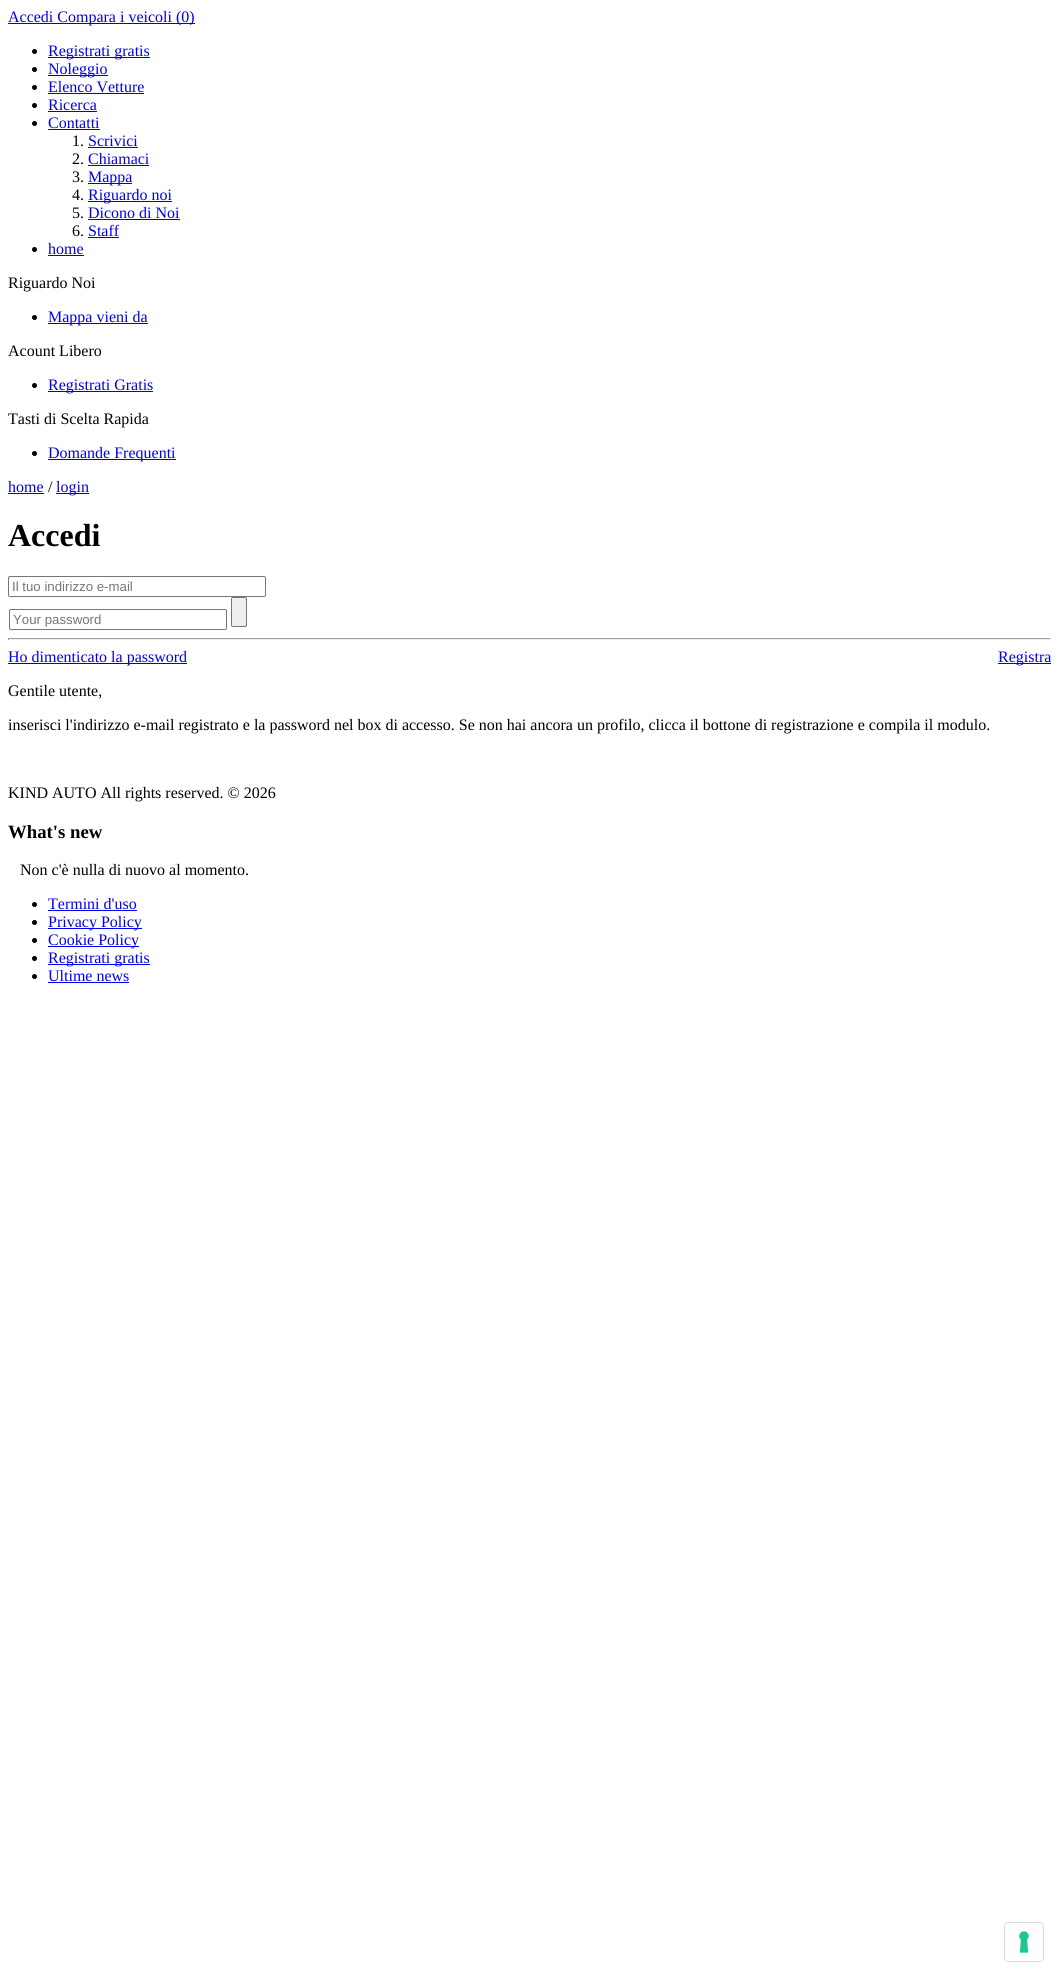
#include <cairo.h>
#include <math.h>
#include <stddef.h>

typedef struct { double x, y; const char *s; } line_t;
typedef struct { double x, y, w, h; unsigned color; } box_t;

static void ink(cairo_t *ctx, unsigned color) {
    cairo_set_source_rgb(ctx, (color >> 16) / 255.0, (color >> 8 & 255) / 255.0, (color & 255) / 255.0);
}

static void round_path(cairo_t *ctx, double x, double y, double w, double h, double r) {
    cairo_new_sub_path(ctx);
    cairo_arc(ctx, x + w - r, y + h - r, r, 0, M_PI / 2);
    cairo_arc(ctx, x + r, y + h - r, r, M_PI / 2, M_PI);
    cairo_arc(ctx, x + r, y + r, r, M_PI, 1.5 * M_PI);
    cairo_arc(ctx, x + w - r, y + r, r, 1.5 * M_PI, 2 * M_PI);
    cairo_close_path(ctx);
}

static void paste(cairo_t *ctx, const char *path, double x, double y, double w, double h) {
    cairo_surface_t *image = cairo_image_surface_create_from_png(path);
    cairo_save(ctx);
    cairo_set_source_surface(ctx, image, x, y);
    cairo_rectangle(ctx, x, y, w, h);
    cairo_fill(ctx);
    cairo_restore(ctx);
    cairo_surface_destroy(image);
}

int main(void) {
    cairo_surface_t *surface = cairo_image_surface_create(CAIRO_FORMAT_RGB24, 1059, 1977);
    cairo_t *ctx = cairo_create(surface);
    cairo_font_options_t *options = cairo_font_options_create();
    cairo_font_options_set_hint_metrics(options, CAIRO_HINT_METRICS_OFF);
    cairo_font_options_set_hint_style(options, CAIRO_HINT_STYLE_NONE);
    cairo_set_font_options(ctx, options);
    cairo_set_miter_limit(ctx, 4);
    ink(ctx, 0xFFFFFF);
    cairo_paint(ctx);
    ink(ctx, 0x0000EE);
    cairo_rectangle(ctx, 8, 23, 187, 1);
    cairo_fill(ctx);
    cairo_select_font_face(ctx, "Liberation Serif", CAIRO_FONT_SLANT_NORMAL, CAIRO_FONT_WEIGHT_NORMAL);
    cairo_set_font_size(ctx, 16);
    cairo_move_to(ctx, 8, 22);
    cairo_show_text(ctx, "Accedi Compara i veicoli (0)");
    ink(ctx, 0x000000);
    cairo_new_path(ctx);
    cairo_arc(ctx, 34.5, 51.5, 2.5, 0, 2 * M_PI);
    cairo_fill(ctx);
    ink(ctx, 0x0000EE);
    cairo_rectangle(ctx, 48, 57, 102, 1);
    cairo_fill(ctx);
    cairo_move_to(ctx, 48, 56);
    cairo_show_text(ctx, "Registrati gratis");
    ink(ctx, 0x000000);
    cairo_new_path(ctx);
    cairo_arc(ctx, 34.5, 69.5, 2.5, 0, 2 * M_PI);
    cairo_fill(ctx);
    ink(ctx, 0x0000EE);
    cairo_rectangle(ctx, 48, 75, 60, 1);
    cairo_fill(ctx);
    cairo_move_to(ctx, 48, 74);
    cairo_show_text(ctx, "Noleggio");
    ink(ctx, 0x000000);
    cairo_new_path(ctx);
    cairo_arc(ctx, 34.5, 87.5, 2.5, 0, 2 * M_PI);
    cairo_fill(ctx);
    ink(ctx, 0x0000EE);
    cairo_move_to(ctx, 48, 92);
    cairo_show_text(ctx, "Elenco Vetture");
    cairo_rectangle(ctx, 48, 93, 96, 1);
    cairo_fill(ctx);
    ink(ctx, 0x000000);
    cairo_arc(ctx, 34.5, 105.5, 2.5, 0, 2 * M_PI);
    cairo_fill(ctx);
    ink(ctx, 0x0000EE);
    cairo_move_to(ctx, 48, 110);
    cairo_show_text(ctx, "Ricerca");
    cairo_rectangle(ctx, 48, 111, 49, 1);
    cairo_fill(ctx);
    ink(ctx, 0x000000);
    cairo_arc(ctx, 34.5, 123.5, 2.5, 0, 2 * M_PI);
    cairo_fill(ctx);
    ink(ctx, 0x0000EE);
    cairo_move_to(ctx, 48, 128);
    cairo_show_text(ctx, "Contatti");
    cairo_rectangle(ctx, 48, 129, 52, 1);
    cairo_fill(ctx);
    ink(ctx, 0x000000);
    cairo_move_to(ctx, 72, 146);
    cairo_show_text(ctx, "1.");
    ink(ctx, 0x0000EE);
    cairo_move_to(ctx, 88, 146);
    cairo_show_text(ctx, "Scrivici");
    cairo_rectangle(ctx, 88, 147, 50, 1);
    cairo_fill(ctx);
    ink(ctx, 0x000000);
    cairo_move_to(ctx, 72, 164);
    cairo_show_text(ctx, "2.");
    ink(ctx, 0x0000EE);
    cairo_move_to(ctx, 88, 164);
    cairo_show_text(ctx, "Chiamaci");
    cairo_rectangle(ctx, 88, 165, 61, 1);
    cairo_fill(ctx);
    ink(ctx, 0x000000);
    cairo_move_to(ctx, 72, 182);
    cairo_show_text(ctx, "3.");
    ink(ctx, 0x0000EE);
    cairo_rectangle(ctx, 88, 183, 44, 1);
    cairo_fill(ctx);
    cairo_move_to(ctx, 88, 182);
    cairo_show_text(ctx, "Mappa");
    ink(ctx, 0x000000);
    cairo_move_to(ctx, 72, 200);
    cairo_show_text(ctx, "4.");
    ink(ctx, 0x0000EE);
    cairo_rectangle(ctx, 88, 201, 84, 1);
    cairo_fill(ctx);
    cairo_move_to(ctx, 88, 200);
    cairo_show_text(ctx, "Riguardo noi");
    ink(ctx, 0x000000);
    cairo_move_to(ctx, 72, 218);
    cairo_show_text(ctx, "5.");
    ink(ctx, 0x0000EE);
    cairo_move_to(ctx, 88, 218);
    cairo_show_text(ctx, "Dicono di Noi");
    cairo_rectangle(ctx, 88, 219, 92, 1);
    cairo_fill(ctx);
    ink(ctx, 0x000000);
    cairo_move_to(ctx, 72, 236);
    cairo_show_text(ctx, "6.");
    ink(ctx, 0x0000EE);
    cairo_move_to(ctx, 88, 236);
    cairo_show_text(ctx, "Staff");
    cairo_rectangle(ctx, 88, 237, 31, 1);
    cairo_fill(ctx);
    ink(ctx, 0x000000);
    cairo_arc(ctx, 34.5, 249.5, 2.5, 0, 2 * M_PI);
    cairo_fill(ctx);
    ink(ctx, 0x0000EE);
    cairo_move_to(ctx, 48, 254);
    cairo_show_text(ctx, "home");
    cairo_rectangle(ctx, 48, 255, 36, 1);
    cairo_fill(ctx);
    ink(ctx, 0x000000);
    cairo_move_to(ctx, 8, 288);
    cairo_show_text(ctx, "Riguardo Noi");
    cairo_new_path(ctx);
    cairo_arc(ctx, 34.5, 317.5, 2.5, 0, 2 * M_PI);
    cairo_fill(ctx);
    ink(ctx, 0x0000EE);
    cairo_rectangle(ctx, 48, 323, 100, 1);
    cairo_fill(ctx);
    cairo_move_to(ctx, 48, 322);
    cairo_show_text(ctx, "Mappa vieni da");
    ink(ctx, 0x000000);
    cairo_move_to(ctx, 8, 356);
    cairo_show_text(ctx, "Acount Libero");
    cairo_new_path(ctx);
    cairo_arc(ctx, 34.5, 385.5, 2.5, 0, 2 * M_PI);
    cairo_fill(ctx);
    ink(ctx, 0x0000EE);
    cairo_rectangle(ctx, 48, 391, 105, 1);
    cairo_fill(ctx);
    cairo_move_to(ctx, 48, 390);
    cairo_show_text(ctx, "Registrati Gratis");
    ink(ctx, 0x000000);
    cairo_move_to(ctx, 8, 424);
    cairo_show_text(ctx, "Tasti di Scelta Rapida");
    cairo_new_path(ctx);
    cairo_arc(ctx, 34.5, 453.5, 2.5, 0, 2 * M_PI);
    cairo_fill(ctx);
    ink(ctx, 0x0000EE);
    cairo_rectangle(ctx, 48, 459, 128, 1);
    cairo_fill(ctx);
    cairo_move_to(ctx, 48, 458);
    cairo_show_text(ctx, "Domande Frequenti");
    cairo_move_to(ctx, 8, 492);
    cairo_show_text(ctx, "home");
    cairo_rectangle(ctx, 8, 493, 36, 1);
    cairo_fill(ctx);
    ink(ctx, 0x000000);
    cairo_move_to(ctx, 48, 492);
    cairo_show_text(ctx, "/");
    ink(ctx, 0x0000EE);
    cairo_rectangle(ctx, 56, 493, 33, 1);
    cairo_fill(ctx);
    cairo_move_to(ctx, 56, 492);
    cairo_show_text(ctx, "login");
    cairo_select_font_face(ctx, "Liberation Serif", CAIRO_FONT_SLANT_NORMAL, CAIRO_FONT_WEIGHT_BOLD);
    cairo_set_font_size(ctx, 32);
    ink(ctx, 0x000000);
    cairo_move_to(ctx, 8, 546);
    cairo_show_text(ctx, "Accedi");
    round_path(ctx, 8.5, 576.5, 257, 20, 1.5);
    ink(ctx, 0x767676);
    cairo_set_line_width(ctx, 1);
    cairo_stroke(ctx);
    cairo_select_font_face(ctx, "Liberation Sans", CAIRO_FONT_SLANT_NORMAL, CAIRO_FONT_WEIGHT_NORMAL);
    cairo_set_font_size(ctx, 13.25);
    ink(ctx, 0x757575);
    cairo_move_to(ctx, 12, 591);
    cairo_show_text(ctx, "Il tuo indirizzo e-mail");
    round_path(ctx, 9.5, 609.5, 217, 20, 1.5);
    ink(ctx, 0x767676);
    cairo_stroke(ctx);
    ink(ctx, 0x757575);
    cairo_move_to(ctx, 13, 624);
    cairo_show_text(ctx, "Your password");
    ink(ctx, 0xEFEFEF);
    round_path(ctx, 231.5, 597.5, 15, 29, 1.5);
    cairo_fill_preserve(ctx);
    ink(ctx, 0x767676);
    cairo_stroke(ctx);
    {
        static const box_t items[] = {
            {8, 638, 1043, 1, 0x9F9F9F},
            {1050, 638, 1, 2, 0xEEEEEE},
            {8, 639, 1043, 1, 0xEEEEEE},
            {8, 638, 1, 2, 0x9F9F9F},
            {8, 663, 179, 1, 0x0000EE},
        };
        for (size_t i = 0; i < sizeof items / sizeof *items; i++) {
            ink(ctx, items[i].color);
            cairo_rectangle(ctx, items[i].x, items[i].y, items[i].w, items[i].h);
            cairo_fill(ctx);
        }
    }
    cairo_select_font_face(ctx, "Liberation Serif", CAIRO_FONT_SLANT_NORMAL, CAIRO_FONT_WEIGHT_NORMAL);
    cairo_set_font_size(ctx, 16);
    cairo_move_to(ctx, 8, 662);
    cairo_show_text(ctx, "Ho dimenticato la password");
    cairo_rectangle(ctx, 998, 663, 53, 1);
    cairo_fill(ctx);
    cairo_move_to(ctx, 998, 662);
    cairo_show_text(ctx, "Registra");
    ink(ctx, 0x000000);
    {
        static const line_t items[] = {
            {8, 696, "Gentile utente,"},
            {8, 730, "inserisci l'indirizzo e-mail registrato e la password nel box di accesso. Se non hai ancora un profilo, clicca il bottone di registrazione e compila il modulo."},
            {8, 798, "KIND AUTO All rights reserved. © 2026"},
        };
        for (size_t i = 0; i < sizeof items / sizeof *items; i++) {
            cairo_move_to(ctx, items[i].x, items[i].y);
            cairo_show_text(ctx, items[i].s);
        }
    }
    cairo_select_font_face(ctx, "Liberation Serif", CAIRO_FONT_SLANT_NORMAL, CAIRO_FONT_WEIGHT_BOLD);
    cairo_set_font_size(ctx, 18.75);
    cairo_move_to(ctx, 8, 838);
    cairo_show_text(ctx, "What's new");
    cairo_select_font_face(ctx, "Liberation Serif", CAIRO_FONT_SLANT_NORMAL, CAIRO_FONT_WEIGHT_NORMAL);
    cairo_set_font_size(ctx, 16);
    cairo_move_to(ctx, 20, 875);
    cairo_show_text(ctx, "Non c'è nulla di nuovo al momento.");
    cairo_new_path(ctx);
    cairo_arc(ctx, 34.5, 904.5, 2.5, 0, 2 * M_PI);
    cairo_fill(ctx);
    ink(ctx, 0x0000EE);
    cairo_move_to(ctx, 48, 909);
    cairo_show_text(ctx, "Termini d'uso");
    cairo_rectangle(ctx, 48, 910, 89, 1);
    cairo_fill(ctx);
    ink(ctx, 0x000000);
    cairo_arc(ctx, 34.5, 922.5, 2.5, 0, 2 * M_PI);
    cairo_fill(ctx);
    ink(ctx, 0x0000EE);
    cairo_rectangle(ctx, 48, 928, 94, 1);
    cairo_fill(ctx);
    cairo_move_to(ctx, 48, 927);
    cairo_show_text(ctx, "Privacy Policy");
    ink(ctx, 0x000000);
    cairo_new_path(ctx);
    cairo_arc(ctx, 34.5, 940.5, 2.5, 0, 2 * M_PI);
    cairo_fill(ctx);
    ink(ctx, 0x0000EE);
    cairo_rectangle(ctx, 48, 946, 91, 1);
    cairo_fill(ctx);
    cairo_move_to(ctx, 48, 945);
    cairo_show_text(ctx, "Cookie Policy");
    ink(ctx, 0x000000);
    cairo_new_path(ctx);
    cairo_arc(ctx, 34.5, 958.5, 2.5, 0, 2 * M_PI);
    cairo_fill(ctx);
    ink(ctx, 0x0000EE);
    cairo_rectangle(ctx, 48, 964, 102, 1);
    cairo_fill(ctx);
    cairo_move_to(ctx, 48, 963);
    cairo_show_text(ctx, "Registrati gratis");
    ink(ctx, 0x000000);
    cairo_new_path(ctx);
    cairo_arc(ctx, 34.5, 976.5, 2.5, 0, 2 * M_PI);
    cairo_fill(ctx);
    ink(ctx, 0x0000EE);
    cairo_move_to(ctx, 48, 981);
    cairo_show_text(ctx, "Ultime news");
    cairo_rectangle(ctx, 48, 982, 81, 1);
    cairo_fill(ctx);
    round_path(ctx, 1004.5, 1922.5, 39, 39, 4.5);
    ink(ctx, 0xD9D9D9);
    cairo_stroke(ctx);
    ink(ctx, 0xFFFFFF);
    round_path(ctx, 1005, 1923, 38, 38, 4);
    cairo_fill(ctx);
    paste(ctx, "media/1.png", 1019, 1931, 10, 22);
    cairo_surface_write_to_png(surface, "image.png");
    cairo_font_options_destroy(options);
    cairo_destroy(ctx);
    cairo_surface_destroy(surface);
    return 0;
}
